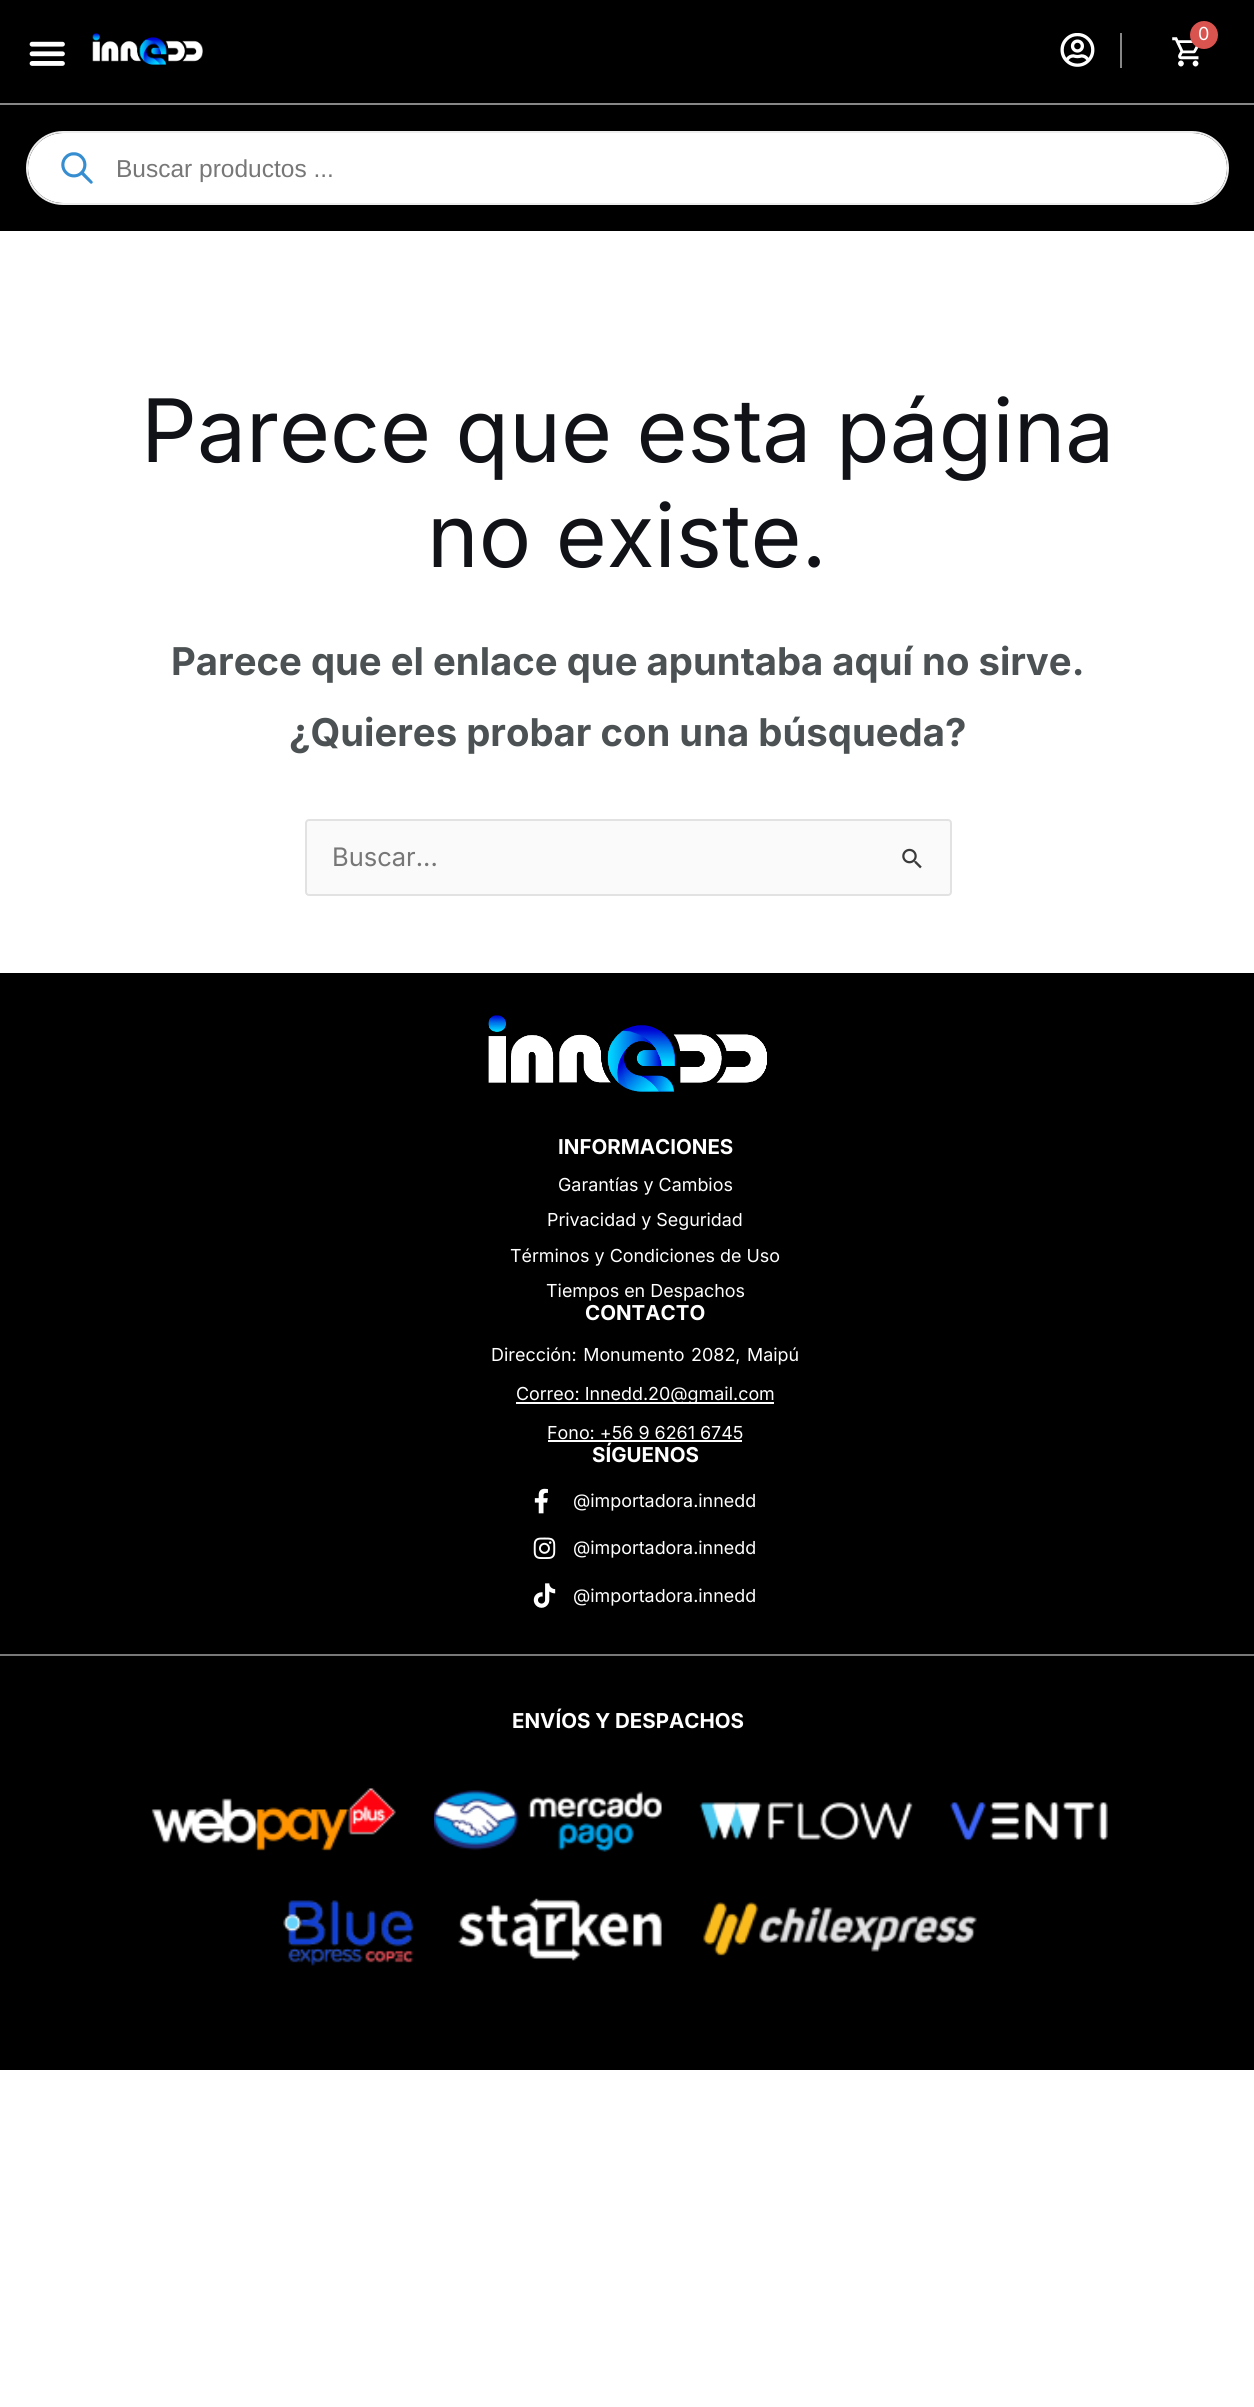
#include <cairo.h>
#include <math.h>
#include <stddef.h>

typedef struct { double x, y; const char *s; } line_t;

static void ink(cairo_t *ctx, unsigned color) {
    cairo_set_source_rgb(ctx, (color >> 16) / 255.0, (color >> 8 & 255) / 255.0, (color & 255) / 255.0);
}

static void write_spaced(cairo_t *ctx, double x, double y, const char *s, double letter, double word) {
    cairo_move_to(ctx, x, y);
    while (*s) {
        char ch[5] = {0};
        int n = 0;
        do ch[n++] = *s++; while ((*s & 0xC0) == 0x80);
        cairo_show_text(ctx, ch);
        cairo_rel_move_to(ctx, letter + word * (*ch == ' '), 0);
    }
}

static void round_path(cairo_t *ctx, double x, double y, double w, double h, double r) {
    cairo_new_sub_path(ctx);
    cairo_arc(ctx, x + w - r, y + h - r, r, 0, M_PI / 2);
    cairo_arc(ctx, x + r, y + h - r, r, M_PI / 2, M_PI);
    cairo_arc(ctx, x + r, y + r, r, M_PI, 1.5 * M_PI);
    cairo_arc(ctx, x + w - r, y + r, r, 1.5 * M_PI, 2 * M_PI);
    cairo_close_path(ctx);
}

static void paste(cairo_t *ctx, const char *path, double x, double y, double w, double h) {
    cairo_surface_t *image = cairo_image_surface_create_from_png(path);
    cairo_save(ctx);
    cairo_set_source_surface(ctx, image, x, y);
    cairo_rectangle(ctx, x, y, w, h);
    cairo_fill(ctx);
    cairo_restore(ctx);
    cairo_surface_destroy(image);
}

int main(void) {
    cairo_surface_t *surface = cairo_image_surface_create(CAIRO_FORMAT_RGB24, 1254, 2407);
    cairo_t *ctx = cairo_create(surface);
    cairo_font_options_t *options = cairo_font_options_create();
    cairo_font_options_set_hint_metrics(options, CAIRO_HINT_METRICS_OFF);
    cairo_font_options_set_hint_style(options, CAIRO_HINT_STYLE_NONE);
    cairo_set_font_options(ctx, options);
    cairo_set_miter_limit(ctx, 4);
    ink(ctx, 0xFFFFFF);
    cairo_paint(ctx);
    ink(ctx, 0x000000);
    cairo_rectangle(ctx, 0, 0, 1254, 231);
    cairo_fill(ctx);
    ink(ctx, 0x878787);
    cairo_rectangle(ctx, 0, 103, 1254, 2);
    cairo_fill(ctx);
    paste(ctx, "media/1.png", 29, 41, 36, 25);
    paste(ctx, "media/2.png", 92, 33, 111, 32);
    cairo_rectangle(ctx, 1120, 33, 2, 35);
    cairo_fill(ctx);
    paste(ctx, "media/3.png", 1060, 33, 35, 34);
    paste(ctx, "media/4.png", 1172, 37, 27, 30);
    ink(ctx, 0xD9534F);
    cairo_arc(ctx, 1204, 35, 14, 0, 2 * M_PI);
    cairo_fill(ctx);
    cairo_select_font_face(ctx, "Inter", CAIRO_FONT_SLANT_NORMAL, CAIRO_FONT_WEIGHT_NORMAL);
    cairo_set_font_size(ctx, 18);
    ink(ctx, 0xFFFFFF);
    cairo_move_to(ctx, 1198, 40);
    cairo_show_text(ctx, "0");
    round_path(ctx, 27, 132, 1201, 72, 36);
    ink(ctx, 0xEEEEEE);
    cairo_stroke(ctx);
    ink(ctx, 0xFFFFFF);
    round_path(ctx, 28, 133, 1199, 70, 35);
    cairo_fill(ctx);
    paste(ctx, "media/5.png", 61, 152, 32, 32);
    cairo_select_font_face(ctx, "Liberation Sans", CAIRO_FONT_SLANT_NORMAL, CAIRO_FONT_WEIGHT_NORMAL);
    cairo_set_font_size(ctx, 24.5);
    ink(ctx, 0x777777);
    cairo_move_to(ctx, 116, 177);
    cairo_show_text(ctx, "Buscar productos ...");
    cairo_select_font_face(ctx, "Inter", CAIRO_FONT_SLANT_NORMAL, CAIRO_FONT_WEIGHT_NORMAL);
    cairo_set_font_size(ctx, 87.5);
    ink(ctx, 0x101218);
    cairo_move_to(ctx, 141, 462);
    cairo_show_text(ctx, "Parece que esta página");
    cairo_move_to(ctx, 427, 567);
    cairo_show_text(ctx, "no existe.");
    cairo_select_font_face(ctx, "Inter", CAIRO_FONT_SLANT_NORMAL, CAIRO_FONT_WEIGHT_BOLD);
    cairo_set_font_size(ctx, 38.3);
    ink(ctx, 0x4C5253);
    cairo_move_to(ctx, 171, 675);
    cairo_show_text(ctx, "Parece que el enlace que apuntaba aquí no sirve.");
    cairo_move_to(ctx, 289, 746);
    cairo_show_text(ctx, "¿Quieres probar con una búsqueda?");
    ink(ctx, 0xFAFAFA);
    round_path(ctx, 306, 820, 645, 75, 3);
    cairo_fill_preserve(ctx);
    ink(ctx, 0xE2E2E2);
    cairo_stroke(ctx);
    cairo_select_font_face(ctx, "Inter", CAIRO_FONT_SLANT_NORMAL, CAIRO_FONT_WEIGHT_NORMAL);
    cairo_set_font_size(ctx, 25.5);
    ink(ctx, 0x777777);
    cairo_move_to(ctx, 332, 866);
    cairo_show_text(ctx, "Buscar...");
    paste(ctx, "media/6.png", 902, 848, 20, 21);
    ink(ctx, 0x000000);
    cairo_rectangle(ctx, 0, 973, 1254, 681);
    cairo_fill(ctx);
    paste(ctx, "media/7.png", 488, 1015, 279, 77);
    cairo_select_font_face(ctx, "Inter", CAIRO_FONT_SLANT_NORMAL, CAIRO_FONT_WEIGHT_BOLD);
    cairo_set_font_size(ctx, 20.5);
    ink(ctx, 0xFFFFFF);
    cairo_move_to(ctx, 558, 1154);
    cairo_show_text(ctx, "INFORMACIONES");
    cairo_select_font_face(ctx, "Inter", CAIRO_FONT_SLANT_NORMAL, CAIRO_FONT_WEIGHT_NORMAL);
    cairo_set_font_size(ctx, 17.9);
    {
        static const line_t items[] = {
            {558, 1191, "Garantías y Cambios"},
            {547, 1226, "Privacidad y Seguridad"},
            {510, 1262, "Términos y Condiciones de Uso"},
            {546, 1297, "Tiempos en Despachos"},
        };
        for (size_t i = 0; i < sizeof items / sizeof *items; i++) {
            cairo_move_to(ctx, items[i].x, items[i].y);
            cairo_show_text(ctx, items[i].s);
        }
    }
    cairo_select_font_face(ctx, "Inter", CAIRO_FONT_SLANT_NORMAL, CAIRO_FONT_WEIGHT_BOLD);
    cairo_set_font_size(ctx, 20.5);
    cairo_move_to(ctx, 585, 1320);
    cairo_show_text(ctx, "CONTACTO");
    cairo_select_font_face(ctx, "Inter", CAIRO_FONT_SLANT_NORMAL, CAIRO_FONT_WEIGHT_NORMAL);
    cairo_set_font_size(ctx, 17.9);
    write_spaced(ctx, 491, 1361, "Dirección: Monumento 2082, Maipú", 0, 1.5);
    cairo_rectangle(ctx, 516, 1402, 258, 2);
    cairo_fill(ctx);
    cairo_move_to(ctx, 516, 1400);
    cairo_show_text(ctx, "Correo: Innedd.20@gmail.com");
    cairo_move_to(ctx, 547, 1439);
    cairo_show_text(ctx, "Fono: +56 9 6261 6745");
    cairo_rectangle(ctx, 548, 1440, 194, 2);
    cairo_fill(ctx);
    cairo_select_font_face(ctx, "Inter", CAIRO_FONT_SLANT_NORMAL, CAIRO_FONT_WEIGHT_BOLD);
    cairo_set_font_size(ctx, 20.5);
    cairo_move_to(ctx, 592, 1462);
    cairo_show_text(ctx, "SÍGUENOS");
    paste(ctx, "media/8.png", 534, 1488, 14, 26);
    cairo_select_font_face(ctx, "Inter", CAIRO_FONT_SLANT_NORMAL, CAIRO_FONT_WEIGHT_NORMAL);
    cairo_set_font_size(ctx, 17.9);
    cairo_move_to(ctx, 573, 1507);
    cairo_show_text(ctx, "@importadora.innedd");
    paste(ctx, "media/9.png", 533, 1537, 23, 22);
    cairo_move_to(ctx, 573, 1554);
    cairo_show_text(ctx, "@importadora.innedd");
    paste(ctx, "media/10.png", 533, 1583, 23, 25);
    cairo_move_to(ctx, 573, 1602);
    cairo_show_text(ctx, "@importadora.innedd");
    ink(ctx, 0x000000);
    cairo_rectangle(ctx, 0, 1656, 1254, 414);
    cairo_fill(ctx);
    ink(ctx, 0x787878);
    cairo_rectangle(ctx, 0, 1654, 1254, 2);
    cairo_fill(ctx);
    cairo_select_font_face(ctx, "Inter", CAIRO_FONT_SLANT_NORMAL, CAIRO_FONT_WEIGHT_BOLD);
    cairo_set_font_size(ctx, 20.5);
    ink(ctx, 0xFFFFFF);
    cairo_move_to(ctx, 512, 1728);
    cairo_show_text(ctx, "ENVÍOS Y DESPACHOS");
    paste(ctx, "media/11.png", 151, 1788, 245, 63);
    paste(ctx, "media/12.png", 434, 1790, 228, 62);
    paste(ctx, "media/13.png", 699, 1802, 214, 38);
    paste(ctx, "media/14.png", 950, 1802, 158, 40);
    paste(ctx, "media/15.png", 283, 1900, 131, 66);
    paste(ctx, "media/16.png", 458, 1898, 204, 63);
    paste(ctx, "media/17.png", 703, 1902, 274, 54);
    cairo_surface_write_to_png(surface, "image.png");
    cairo_font_options_destroy(options);
    cairo_destroy(ctx);
    cairo_surface_destroy(surface);
    return 0;
}
